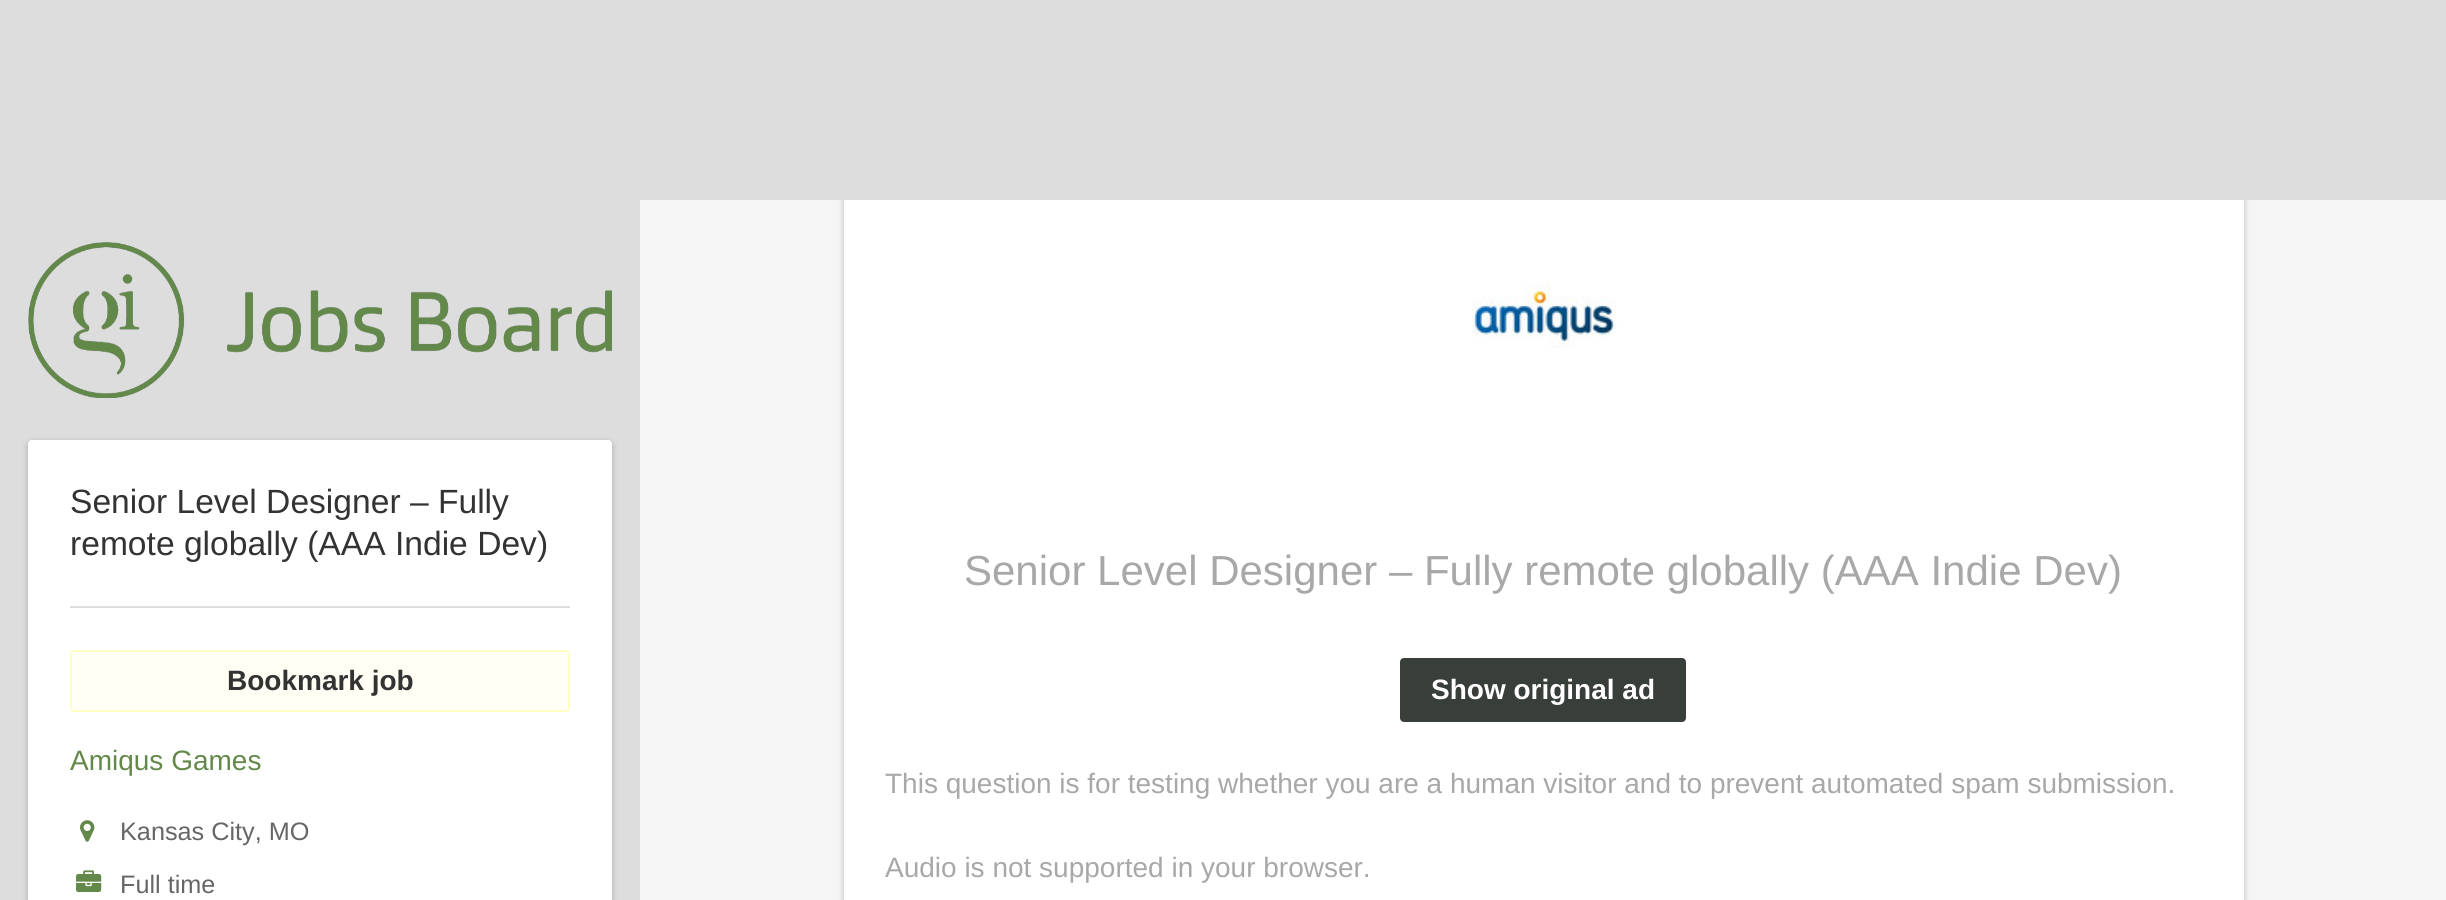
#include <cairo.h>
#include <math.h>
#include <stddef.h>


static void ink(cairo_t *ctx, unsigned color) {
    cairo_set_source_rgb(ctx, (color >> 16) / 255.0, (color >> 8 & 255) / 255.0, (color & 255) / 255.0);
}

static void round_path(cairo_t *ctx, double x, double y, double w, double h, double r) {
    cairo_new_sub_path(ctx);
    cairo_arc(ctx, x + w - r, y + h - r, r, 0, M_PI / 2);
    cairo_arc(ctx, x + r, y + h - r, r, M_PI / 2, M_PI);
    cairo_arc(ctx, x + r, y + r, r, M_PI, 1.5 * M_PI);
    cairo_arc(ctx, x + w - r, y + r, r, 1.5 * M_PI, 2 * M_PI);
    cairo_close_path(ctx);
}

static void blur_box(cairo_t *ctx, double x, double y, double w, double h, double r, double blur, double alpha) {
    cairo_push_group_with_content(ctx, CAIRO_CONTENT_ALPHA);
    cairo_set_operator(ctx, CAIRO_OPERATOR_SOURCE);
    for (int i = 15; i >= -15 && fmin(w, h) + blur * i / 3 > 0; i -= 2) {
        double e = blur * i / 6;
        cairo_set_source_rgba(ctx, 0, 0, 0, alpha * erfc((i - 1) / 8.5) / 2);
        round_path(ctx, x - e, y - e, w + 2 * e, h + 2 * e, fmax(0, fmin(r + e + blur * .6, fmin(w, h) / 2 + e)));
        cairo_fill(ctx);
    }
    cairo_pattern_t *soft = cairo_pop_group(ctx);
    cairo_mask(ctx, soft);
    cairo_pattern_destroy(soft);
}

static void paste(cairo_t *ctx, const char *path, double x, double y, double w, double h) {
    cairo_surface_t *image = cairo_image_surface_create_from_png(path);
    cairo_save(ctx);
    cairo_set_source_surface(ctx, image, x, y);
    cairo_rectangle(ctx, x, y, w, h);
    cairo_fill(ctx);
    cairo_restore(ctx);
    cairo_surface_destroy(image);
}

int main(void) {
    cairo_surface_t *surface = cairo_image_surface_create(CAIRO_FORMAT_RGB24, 2446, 900);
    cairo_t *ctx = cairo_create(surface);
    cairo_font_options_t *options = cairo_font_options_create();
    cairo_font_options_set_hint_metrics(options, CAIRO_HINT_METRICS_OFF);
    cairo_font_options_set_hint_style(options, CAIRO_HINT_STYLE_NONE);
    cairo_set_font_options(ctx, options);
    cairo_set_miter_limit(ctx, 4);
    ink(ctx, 0xF5F5F5);
    cairo_paint(ctx);
    ink(ctx, 0x000000);
    blur_box(ctx, 844, 108, 1400, 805, 4, 3, 0.25);
    ink(ctx, 0xDDDDDD);
    cairo_rectangle(ctx, 0, 0, 2446, 200);
    cairo_fill(ctx);
    cairo_rectangle(ctx, 0, 200, 640, 700);
    cairo_fill(ctx);
    paste(ctx, "media/1.png", 28, 242, 584, 156);
    ink(ctx, 0x000000);
    blur_box(ctx, 28, 442, 584, 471, 4, 3, 0.25);
    ink(ctx, 0xFFFFFF);
    round_path(ctx, 28, 440, 584, 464, 4);
    cairo_fill(ctx);
    ink(ctx, 0xDDDDDD);
    cairo_rectangle(ctx, 70, 606, 500, 2);
    cairo_fill(ctx);
    cairo_select_font_face(ctx, "Liberation Sans", CAIRO_FONT_SLANT_NORMAL, CAIRO_FONT_WEIGHT_NORMAL);
    cairo_set_font_size(ctx, 33.6);
    ink(ctx, 0x333333);
    cairo_move_to(ctx, 70, 513);
    cairo_show_text(ctx, "Senior Level Designer – Fully");
    cairo_move_to(ctx, 70, 555);
    cairo_show_text(ctx, "remote globally (AAA Indie Dev)");
    ink(ctx, 0xFFFFF5);
    round_path(ctx, 71, 651, 498, 60, 3);
    cairo_fill_preserve(ctx);
    ink(ctx, 0xFFFFC2);
    cairo_stroke(ctx);
    cairo_select_font_face(ctx, "Liberation Sans", CAIRO_FONT_SLANT_NORMAL, CAIRO_FONT_WEIGHT_BOLD);
    cairo_set_font_size(ctx, 28);
    ink(ctx, 0x333333);
    cairo_move_to(ctx, 227, 690);
    cairo_show_text(ctx, "Bookmark job");
    cairo_select_font_face(ctx, "Liberation Sans", CAIRO_FONT_SLANT_NORMAL, CAIRO_FONT_WEIGHT_NORMAL);
    ink(ctx, 0x63894A);
    cairo_move_to(ctx, 70, 770);
    cairo_show_text(ctx, "Amiqus Games");
    paste(ctx, "media/2.png", 80, 820, 15, 22);
    cairo_set_font_size(ctx, 25.25);
    ink(ctx, 0x666666);
    cairo_move_to(ctx, 120, 840);
    cairo_show_text(ctx, "Kansas City, MO");
    paste(ctx, "media/3.png", 76, 870, 26, 22);
    cairo_move_to(ctx, 120, 893);
    cairo_show_text(ctx, "Full time");
    ink(ctx, 0xFFFFFF);
    cairo_rectangle(ctx, 844, 200, 1400, 700);
    cairo_fill(ctx);
    paste(ctx, "media/4.png", 1472, 283, 145, 66);
    cairo_set_font_size(ctx, 42);
    ink(ctx, 0xA8A8A8);
    cairo_move_to(ctx, 964, 585);
    cairo_show_text(ctx, "Senior Level Designer – Fully remote globally (AAA Indie Dev)");
    ink(ctx, 0x383E3A);
    round_path(ctx, 1401, 659, 284, 62, 3);
    cairo_fill_preserve(ctx);
    cairo_stroke(ctx);
    cairo_select_font_face(ctx, "Liberation Sans", CAIRO_FONT_SLANT_NORMAL, CAIRO_FONT_WEIGHT_BOLD);
    cairo_set_font_size(ctx, 28);
    ink(ctx, 0xFFFFFF);
    cairo_move_to(ctx, 1431, 699);
    cairo_show_text(ctx, "Show original ad");
    cairo_select_font_face(ctx, "Liberation Sans", CAIRO_FONT_SLANT_NORMAL, CAIRO_FONT_WEIGHT_NORMAL);
    ink(ctx, 0xA8A8A8);
    cairo_move_to(ctx, 885, 793);
    cairo_show_text(ctx, "This question is for testing whether you are a human visitor and to prevent automated spam submission.");
    cairo_move_to(ctx, 885, 877);
    cairo_show_text(ctx, "Audio is not supported in your browser.");
    cairo_surface_write_to_png(surface, "image.png");
    cairo_font_options_destroy(options);
    cairo_destroy(ctx);
    cairo_surface_destroy(surface);
    return 0;
}
